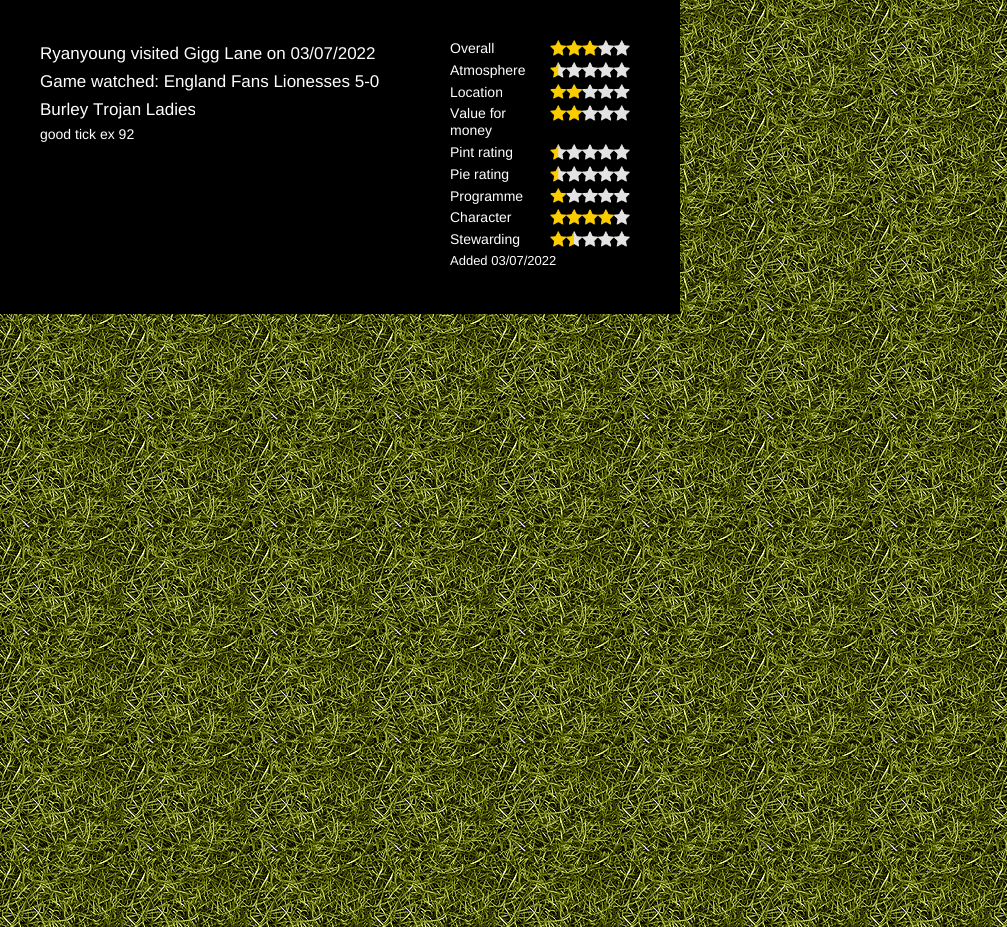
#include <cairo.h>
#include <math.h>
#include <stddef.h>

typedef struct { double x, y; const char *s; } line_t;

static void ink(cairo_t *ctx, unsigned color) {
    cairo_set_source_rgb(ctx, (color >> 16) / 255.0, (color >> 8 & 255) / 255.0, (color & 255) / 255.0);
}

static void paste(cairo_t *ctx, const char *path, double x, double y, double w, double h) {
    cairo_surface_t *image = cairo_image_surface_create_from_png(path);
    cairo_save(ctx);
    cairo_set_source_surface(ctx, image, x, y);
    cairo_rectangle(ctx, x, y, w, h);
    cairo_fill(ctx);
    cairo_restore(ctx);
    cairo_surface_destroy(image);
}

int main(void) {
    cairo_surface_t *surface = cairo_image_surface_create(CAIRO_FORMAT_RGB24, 1007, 927);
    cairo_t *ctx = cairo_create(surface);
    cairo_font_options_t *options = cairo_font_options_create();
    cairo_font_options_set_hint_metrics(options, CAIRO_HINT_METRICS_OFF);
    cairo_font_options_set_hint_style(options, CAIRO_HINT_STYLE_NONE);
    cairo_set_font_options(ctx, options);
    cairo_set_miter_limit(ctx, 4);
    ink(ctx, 0xFFFFFF);
    cairo_paint(ctx);
    paste(ctx, "media/1.png", 0, 0, 1007, 927);
    ink(ctx, 0x000000);
    cairo_rectangle(ctx, 0, 0, 680, 314);
    cairo_fill(ctx);
    cairo_select_font_face(ctx, "Liberation Sans", CAIRO_FONT_SLANT_NORMAL, CAIRO_FONT_WEIGHT_NORMAL);
    cairo_set_font_size(ctx, 17);
    ink(ctx, 0xFFFFFF);
    {
        static const line_t items[] = {
            {40, 59, "Ryanyoung visited Gigg Lane on 03/07/2022"},
            {40, 87, "Game watched: England Fans Lionesses 5-0"},
            {40, 115, "Burley Trojan Ladies"},
        };
        for (size_t i = 0; i < sizeof items / sizeof *items; i++) {
            cairo_move_to(ctx, items[i].x, items[i].y);
            cairo_show_text(ctx, items[i].s);
        }
    }
    cairo_set_font_size(ctx, 14);
    cairo_move_to(ctx, 40, 139);
    cairo_show_text(ctx, "good tick ex 92");
    cairo_move_to(ctx, 450, 53);
    cairo_show_text(ctx, "Overall");
    paste(ctx, "media/2.png", 550, 40, 80, 16);
    cairo_move_to(ctx, 450, 75);
    cairo_show_text(ctx, "Atmosphere");
    paste(ctx, "media/3.png", 550, 62, 80, 16);
    cairo_move_to(ctx, 450, 97);
    cairo_show_text(ctx, "Location");
    paste(ctx, "media/4.png", 550, 84, 80, 15);
    cairo_move_to(ctx, 450, 118);
    cairo_show_text(ctx, "Value for");
    cairo_move_to(ctx, 450, 135);
    cairo_show_text(ctx, "money");
    paste(ctx, "media/5.png", 550, 105, 80, 16);
    cairo_move_to(ctx, 450, 157);
    cairo_show_text(ctx, "Pint rating");
    paste(ctx, "media/3.png", 550, 144, 80, 16);
    cairo_move_to(ctx, 450, 179);
    cairo_show_text(ctx, "Pie rating");
    paste(ctx, "media/3.png", 550, 166, 80, 16);
    cairo_move_to(ctx, 450, 201);
    cairo_show_text(ctx, "Programme");
    paste(ctx, "media/6.png", 550, 188, 80, 15);
    cairo_move_to(ctx, 450, 222);
    cairo_show_text(ctx, "Character");
    paste(ctx, "media/7.png", 550, 209, 80, 16);
    cairo_move_to(ctx, 450, 244);
    cairo_show_text(ctx, "Stewarding");
    paste(ctx, "media/8.png", 550, 231, 80, 16);
    cairo_set_font_size(ctx, 13);
    cairo_move_to(ctx, 450, 265);
    cairo_show_text(ctx, "Added 03/07/2022");
    cairo_surface_write_to_png(surface, "image.png");
    cairo_font_options_destroy(options);
    cairo_destroy(ctx);
    cairo_surface_destroy(surface);
    return 0;
}
